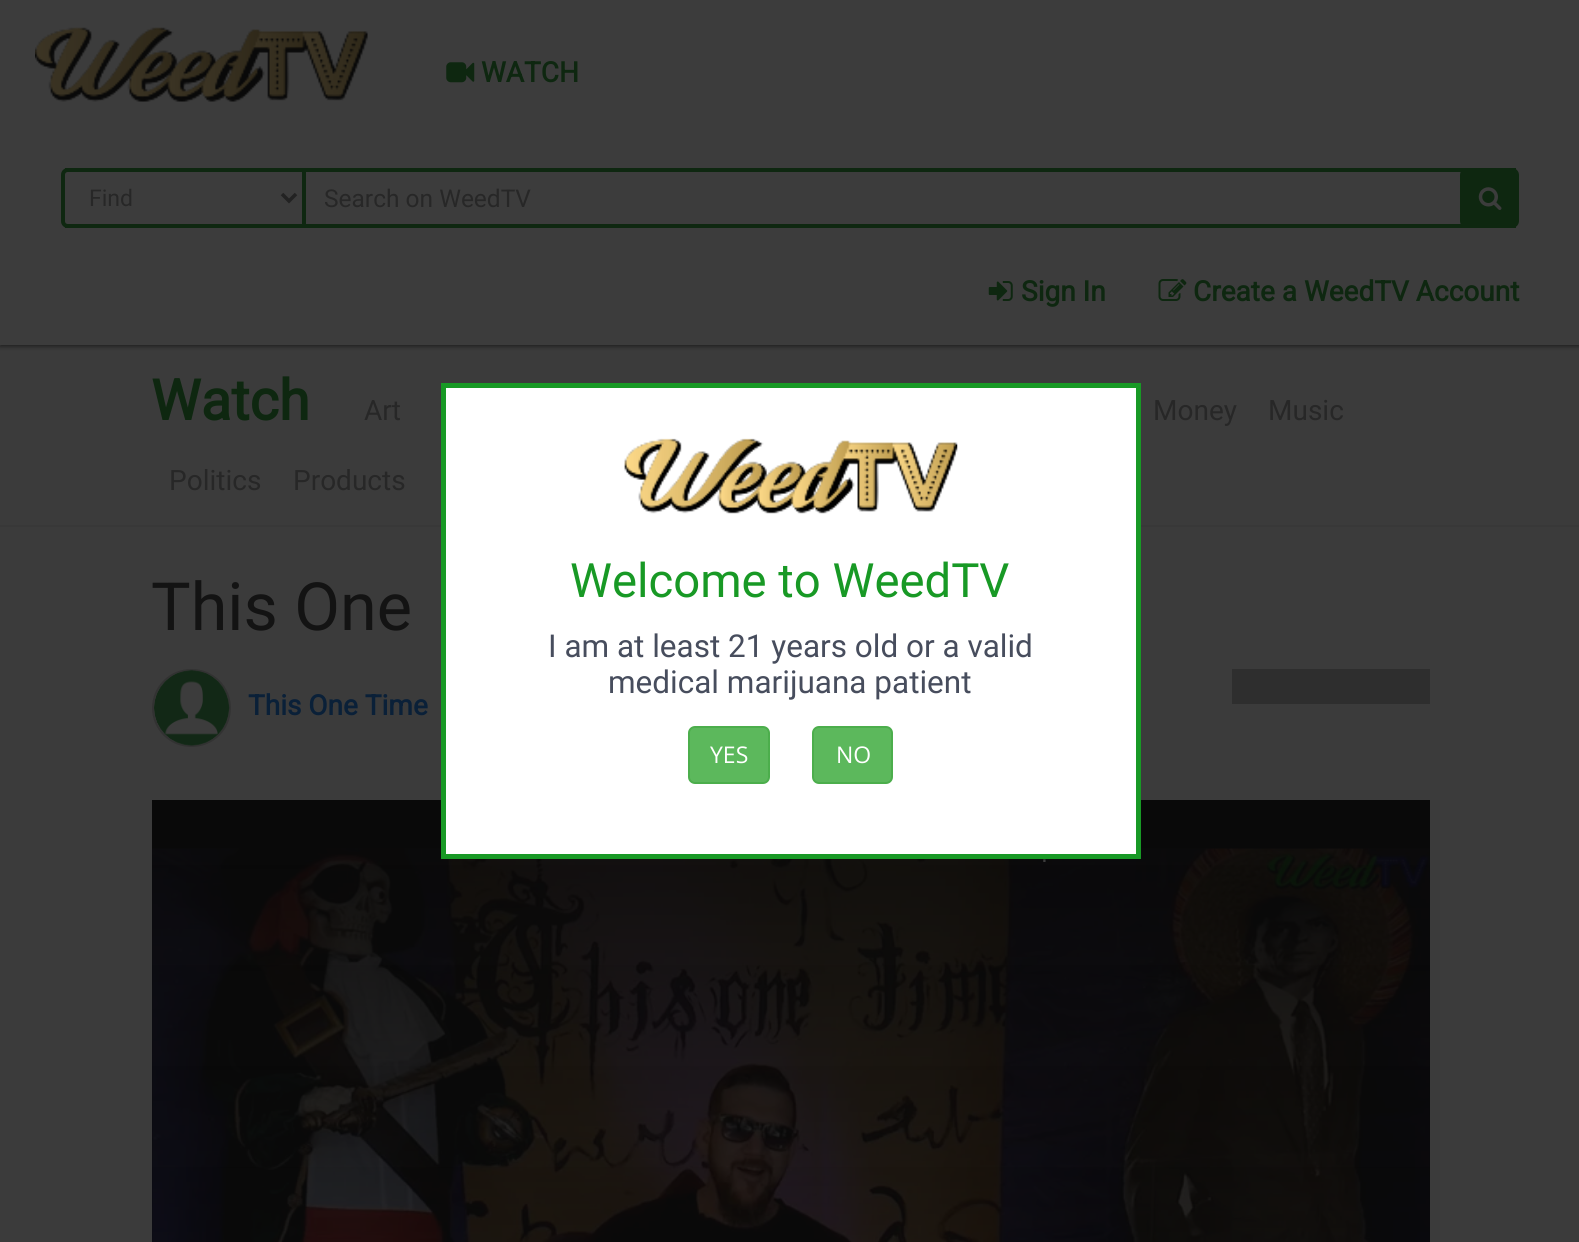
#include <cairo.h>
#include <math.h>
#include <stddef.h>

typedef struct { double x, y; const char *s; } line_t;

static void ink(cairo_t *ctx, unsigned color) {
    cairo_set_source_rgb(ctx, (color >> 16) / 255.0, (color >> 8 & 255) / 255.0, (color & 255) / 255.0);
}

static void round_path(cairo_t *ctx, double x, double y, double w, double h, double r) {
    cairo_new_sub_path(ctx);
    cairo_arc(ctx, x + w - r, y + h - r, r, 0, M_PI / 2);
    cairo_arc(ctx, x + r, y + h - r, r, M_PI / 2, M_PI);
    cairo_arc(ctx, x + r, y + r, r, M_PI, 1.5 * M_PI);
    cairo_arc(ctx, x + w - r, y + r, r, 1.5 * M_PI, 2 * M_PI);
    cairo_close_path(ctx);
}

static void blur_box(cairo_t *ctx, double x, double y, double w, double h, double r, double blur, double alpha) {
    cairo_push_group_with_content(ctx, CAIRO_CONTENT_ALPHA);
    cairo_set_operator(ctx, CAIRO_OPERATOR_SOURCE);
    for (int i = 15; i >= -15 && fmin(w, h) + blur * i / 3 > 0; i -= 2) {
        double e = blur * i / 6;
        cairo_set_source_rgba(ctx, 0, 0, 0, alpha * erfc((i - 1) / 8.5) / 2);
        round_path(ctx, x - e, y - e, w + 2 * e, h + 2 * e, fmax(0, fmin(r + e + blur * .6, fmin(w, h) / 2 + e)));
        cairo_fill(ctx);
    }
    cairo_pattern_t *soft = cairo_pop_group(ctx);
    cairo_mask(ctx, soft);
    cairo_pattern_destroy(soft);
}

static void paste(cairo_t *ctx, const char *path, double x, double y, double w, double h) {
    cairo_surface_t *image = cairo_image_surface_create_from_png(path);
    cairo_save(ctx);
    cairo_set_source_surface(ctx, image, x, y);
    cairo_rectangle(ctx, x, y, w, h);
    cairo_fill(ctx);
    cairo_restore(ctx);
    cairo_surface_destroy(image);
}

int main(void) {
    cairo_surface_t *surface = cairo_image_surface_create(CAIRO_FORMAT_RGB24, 1579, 1242);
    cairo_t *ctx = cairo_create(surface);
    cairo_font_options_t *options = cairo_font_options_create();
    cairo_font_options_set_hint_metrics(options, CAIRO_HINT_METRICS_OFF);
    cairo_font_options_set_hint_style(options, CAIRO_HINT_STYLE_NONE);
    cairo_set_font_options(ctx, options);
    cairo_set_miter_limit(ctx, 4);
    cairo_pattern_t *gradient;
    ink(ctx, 0x3B3B3B);
    cairo_paint(ctx);
    ink(ctx, 0x090909);
    blur_box(ctx, 0, 2, 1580, 345, 0, 2, 0.5);
    ink(ctx, 0x3C3C3C);
    cairo_rectangle(ctx, 0, 0, 1579, 345);
    cairo_fill(ctx);
    paste(ctx, "media/1.png", 35, 27, 333, 75);
    paste(ctx, "media/2.png", 446, 62, 29, 21);
    cairo_select_font_face(ctx, "Roboto", CAIRO_FONT_SLANT_NORMAL, CAIRO_FONT_WEIGHT_BOLD);
    cairo_set_font_size(ctx, 28);
    ink(ctx, 0x0E2710);
    cairo_move_to(ctx, 481, 82);
    cairo_show_text(ctx, "WATCH");
    cairo_rectangle(ctx, 65, 168, 1451, 4);
    cairo_fill(ctx);
    cairo_rectangle(ctx, 65, 224, 1451, 4);
    cairo_fill(ctx);
    ink(ctx, 0x3C3C3C);
    cairo_new_path(ctx);
    cairo_move_to(ctx, 68, 170);
    cairo_line_to(ctx, 304, 170);
    cairo_line_to(ctx, 304, 226);
    cairo_line_to(ctx, 68, 226);
    cairo_curve_to(ctx, 65, 226, 63, 224, 63, 221);
    cairo_line_to(ctx, 63, 175);
    cairo_curve_to(ctx, 63, 172, 65, 170, 68, 170);
    cairo_close_path(ctx);
    cairo_fill_preserve(ctx);
    ink(ctx, 0x0E2710);
    cairo_set_line_width(ctx, 4);
    cairo_stroke(ctx);
    cairo_new_path(ctx);
    cairo_move_to(ctx, 282, 194);
    cairo_line_to(ctx, 289, 201);
    cairo_line_to(ctx, 296, 194);
    ink(ctx, 0x222222);
    cairo_set_line_width(ctx, 3.5);
    cairo_stroke(ctx);
    cairo_select_font_face(ctx, "Roboto", CAIRO_FONT_SLANT_NORMAL, CAIRO_FONT_WEIGHT_NORMAL);
    cairo_set_font_size(ctx, 23);
    ink(ctx, 0x272727);
    cairo_move_to(ctx, 89, 206);
    cairo_show_text(ctx, "Find");
    cairo_set_font_size(ctx, 24.5);
    cairo_move_to(ctx, 324, 207);
    cairo_show_text(ctx, "Search on WeedTV");
    ink(ctx, 0x0E2710);
    round_path(ctx, 1460, 168, 59, 60, 7);
    cairo_fill(ctx);
    paste(ctx, "media/3.png", 1478, 187, 24, 23);
    paste(ctx, "media/4.png", 988, 281, 25, 20);
    cairo_select_font_face(ctx, "Roboto", CAIRO_FONT_SLANT_NORMAL, CAIRO_FONT_WEIGHT_BOLD);
    cairo_set_font_size(ctx, 28);
    cairo_move_to(ctx, 1021, 301);
    cairo_show_text(ctx, "Sign In");
    paste(ctx, "media/5.png", 1158, 279, 29, 22);
    cairo_move_to(ctx, 1193, 301);
    cairo_show_text(ctx, "Create a WeedTV Account");
    ink(ctx, 0x383838);
    cairo_rectangle(ctx, 0, 525, 1579, 2);
    cairo_fill(ctx);
    cairo_set_font_size(ctx, 56);
    ink(ctx, 0x0E2710);
    cairo_move_to(ctx, 151, 420);
    cairo_show_text(ctx, "Watch");
    cairo_select_font_face(ctx, "Roboto", CAIRO_FONT_SLANT_NORMAL, CAIRO_FONT_WEIGHT_NORMAL);
    cairo_set_font_size(ctx, 28);
    ink(ctx, 0x272727);
    {
        static const line_t items[] = {
            {364, 420, "Art"},
            {1153, 420, "Money"},
            {1268, 420, "Music"},
            {169, 490, "Politics"},
            {293, 490, "Products"},
        };
        for (size_t i = 0; i < sizeof items / sizeof *items; i++) {
            cairo_move_to(ctx, items[i].x, items[i].y);
            cairo_show_text(ctx, items[i].s);
        }
    }
    cairo_set_font_size(ctx, 66.5);
    ink(ctx, 0x131313);
    cairo_move_to(ctx, 151, 630);
    cairo_show_text(ctx, "This One");
    round_path(ctx, 153, 670, 77, 76, 38);
    ink(ctx, 0x323232);
    cairo_set_line_width(ctx, 2);
    cairo_stroke(ctx);
    paste(ctx, "media/6.png", 154, 670, 76, 76);
    cairo_select_font_face(ctx, "Roboto", CAIRO_FONT_SLANT_NORMAL, CAIRO_FONT_WEIGHT_BOLD);
    cairo_set_font_size(ctx, 28);
    ink(ctx, 0x0A2038);
    cairo_move_to(ctx, 248, 715);
    cairo_show_text(ctx, "This One Time");
    ink(ctx, 0x2E2E2E);
    cairo_rectangle(ctx, 1232, 669, 198, 35);
    cairo_fill(ctx);
    ink(ctx, 0x090909);
    cairo_rectangle(ctx, 152, 800, 1278, 442);
    cairo_fill(ctx);
    paste(ctx, "media/7.png", 152, 848, 1278, 394);
    paste(ctx, "media/8.png", 152, 848, 1278, 394);
    gradient = cairo_pattern_create_linear(791, 800, 791, 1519);
    cairo_pattern_add_color_stop_rgba(gradient, 0, 0.035, 0.035, 0.035, 0.8);
    cairo_pattern_add_color_stop_rgba(gradient, 1, 0.035, 0.035, 0.035, 0);
    cairo_set_source(ctx, gradient);
    cairo_pattern_destroy(gradient);
    cairo_rectangle(ctx, 152, 848, 1278, 394);
    cairo_fill(ctx);
    cairo_select_font_face(ctx, "Liberation Sans", CAIRO_FONT_SLANT_NORMAL, CAIRO_FONT_WEIGHT_NORMAL);
    cairo_set_font_size(ctx, 24.5);
    ink(ctx, 0x3C3C3C);
    cairo_move_to(ctx, 1041, 862);
    cairo_show_text(ctx, ".");
    ink(ctx, 0xFFFFFF);
    cairo_rectangle(ctx, 443.5, 385.5, 695, 471);
    cairo_fill_preserve(ctx);
    ink(ctx, 0x189925);
    cairo_set_line_width(ctx, 5);
    cairo_stroke(ctx);
    paste(ctx, "media/9.png", 624, 438, 334, 76);
    cairo_select_font_face(ctx, "Roboto", CAIRO_FONT_SLANT_NORMAL, CAIRO_FONT_WEIGHT_NORMAL);
    cairo_set_font_size(ctx, 47.25);
    cairo_move_to(ctx, 570, 597);
    cairo_show_text(ctx, "Welcome to WeedTV");
    cairo_set_font_size(ctx, 31.5);
    ink(ctx, 0x474D5D);
    cairo_move_to(ctx, 548, 657);
    cairo_show_text(ctx, "I am at least 21 years old or a valid");
    cairo_move_to(ctx, 608, 693);
    cairo_show_text(ctx, "medical marijuana patient");
    ink(ctx, 0x5CB85C);
    round_path(ctx, 689, 727, 80, 56, 6);
    cairo_fill_preserve(ctx);
    ink(ctx, 0x4CAE4C);
    cairo_set_line_width(ctx, 2);
    cairo_stroke(ctx);
    cairo_select_font_face(ctx, "Open Sans", CAIRO_FONT_SLANT_NORMAL, CAIRO_FONT_WEIGHT_NORMAL);
    cairo_set_font_size(ctx, 23);
    ink(ctx, 0xFFFFFF);
    cairo_move_to(ctx, 710, 763);
    cairo_show_text(ctx, "YES");
    ink(ctx, 0x5CB85C);
    round_path(ctx, 813, 727, 79, 56, 6);
    cairo_fill_preserve(ctx);
    ink(ctx, 0x4CAE4C);
    cairo_stroke(ctx);
    ink(ctx, 0xFFFFFF);
    cairo_move_to(ctx, 836, 763);
    cairo_show_text(ctx, "NO");
    cairo_surface_write_to_png(surface, "image.png");
    cairo_font_options_destroy(options);
    cairo_destroy(ctx);
    cairo_surface_destroy(surface);
    return 0;
}
